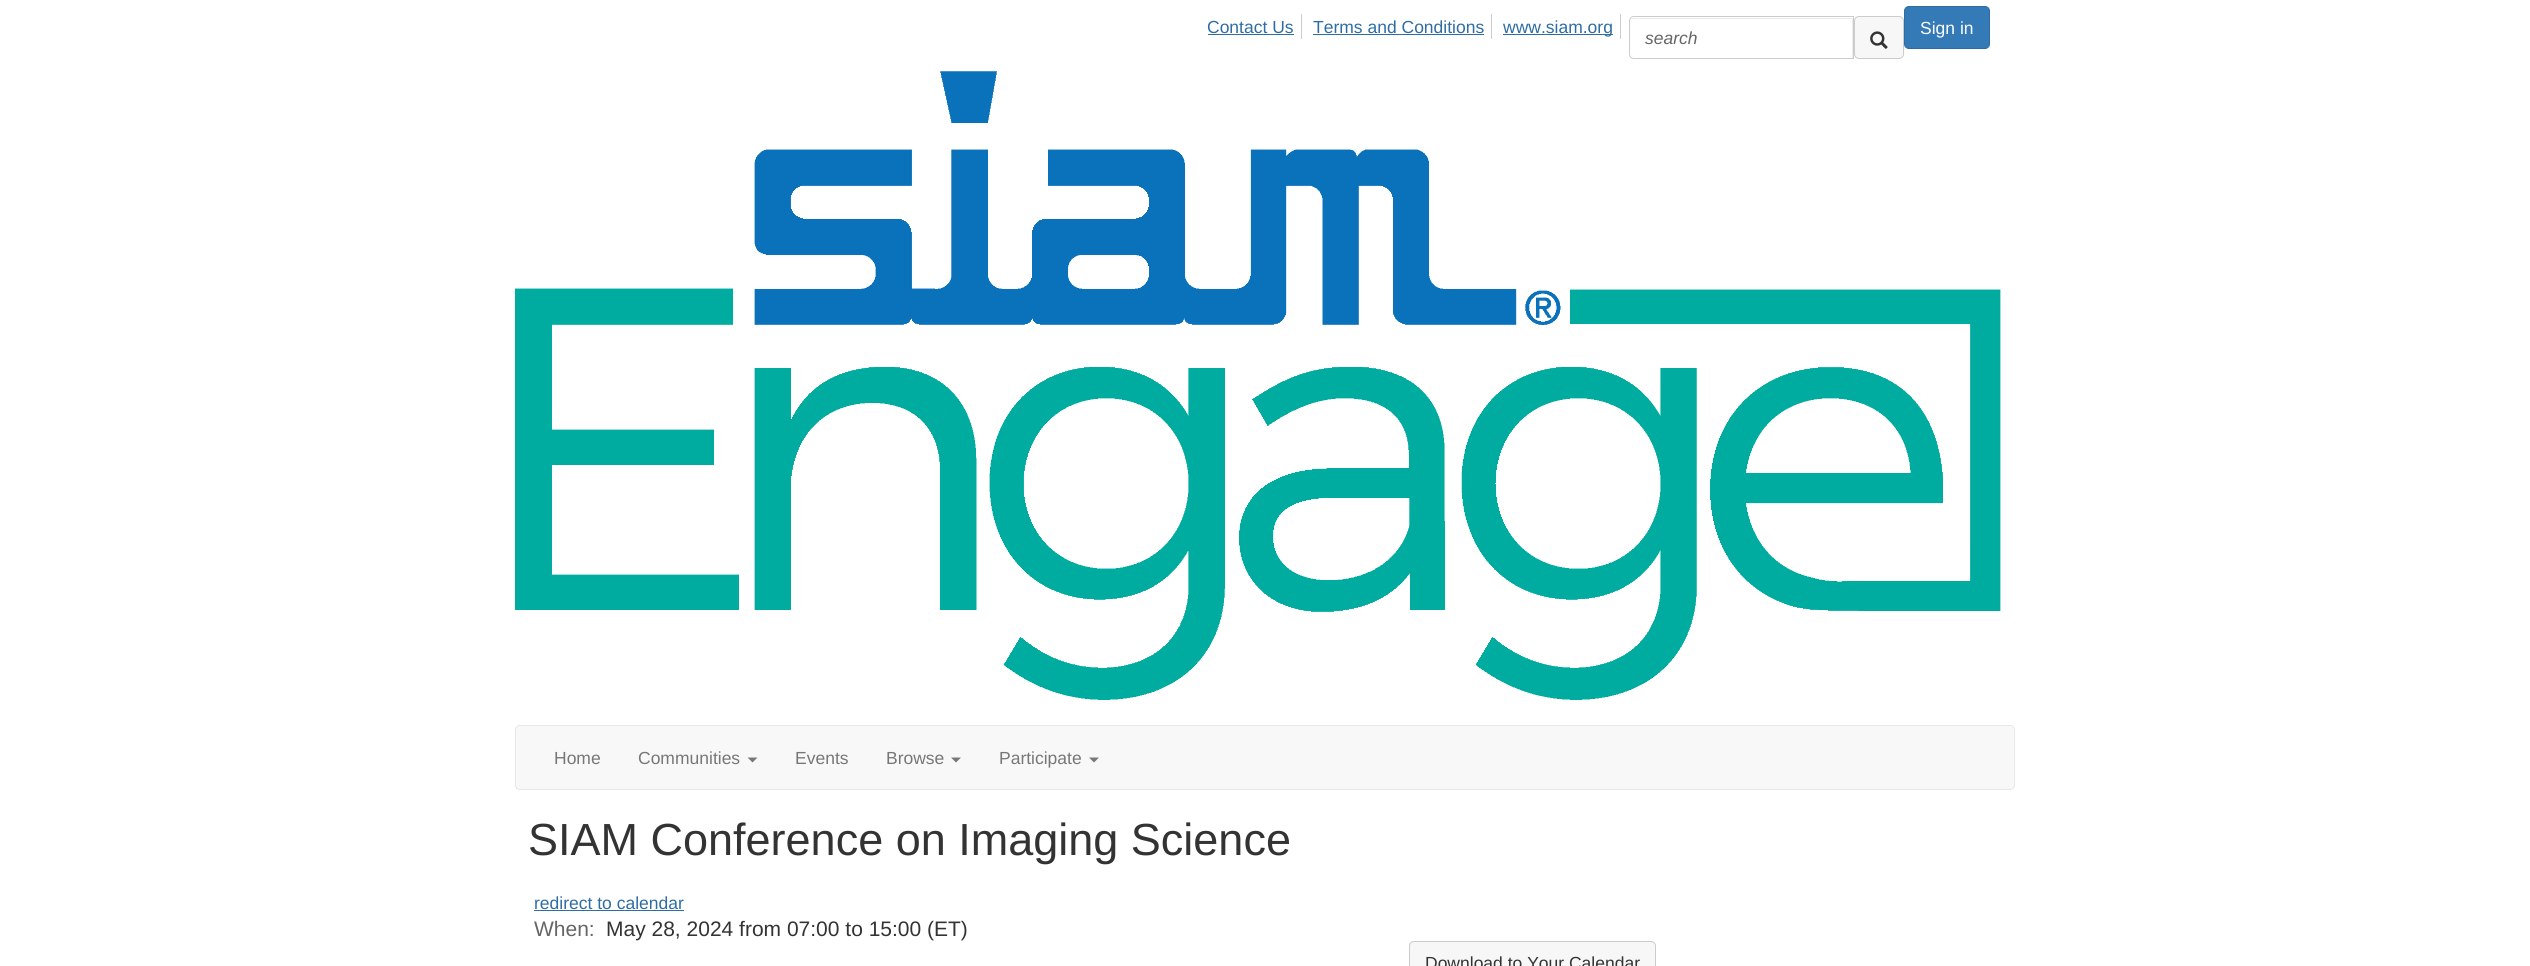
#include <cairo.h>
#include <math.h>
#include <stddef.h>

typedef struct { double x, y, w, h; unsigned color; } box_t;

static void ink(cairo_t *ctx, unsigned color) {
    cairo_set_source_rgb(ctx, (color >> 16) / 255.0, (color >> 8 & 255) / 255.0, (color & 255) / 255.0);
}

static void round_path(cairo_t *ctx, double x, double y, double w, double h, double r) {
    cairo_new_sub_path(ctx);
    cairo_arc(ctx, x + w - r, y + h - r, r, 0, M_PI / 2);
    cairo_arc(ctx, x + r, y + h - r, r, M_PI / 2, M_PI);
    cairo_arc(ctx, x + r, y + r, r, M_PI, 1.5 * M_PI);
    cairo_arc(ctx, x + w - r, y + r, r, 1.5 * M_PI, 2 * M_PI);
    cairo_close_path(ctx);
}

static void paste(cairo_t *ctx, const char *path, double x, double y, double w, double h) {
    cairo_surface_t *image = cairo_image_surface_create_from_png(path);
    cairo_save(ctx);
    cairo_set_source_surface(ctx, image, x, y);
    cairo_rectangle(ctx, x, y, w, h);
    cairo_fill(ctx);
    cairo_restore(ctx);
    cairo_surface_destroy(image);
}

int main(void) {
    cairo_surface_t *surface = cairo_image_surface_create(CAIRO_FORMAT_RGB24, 2530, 966);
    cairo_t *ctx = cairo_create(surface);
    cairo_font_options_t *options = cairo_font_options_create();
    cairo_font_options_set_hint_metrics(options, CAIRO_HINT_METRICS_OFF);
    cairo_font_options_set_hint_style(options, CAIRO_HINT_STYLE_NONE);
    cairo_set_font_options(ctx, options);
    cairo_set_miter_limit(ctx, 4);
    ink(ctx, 0xFFFFFF);
    cairo_paint(ctx);
    ink(ctx, 0xCCCCCC);
    cairo_rectangle(ctx, 1301, 14, 1, 25);
    cairo_fill(ctx);
    cairo_select_font_face(ctx, "Liberation Sans", CAIRO_FONT_SLANT_NORMAL, CAIRO_FONT_WEIGHT_NORMAL);
    cairo_set_font_size(ctx, 17.5);
    ink(ctx, 0x2E6DA4);
    cairo_move_to(ctx, 1207, 33);
    cairo_show_text(ctx, "Contact Us");
    cairo_rectangle(ctx, 1208, 34, 86, 1);
    cairo_fill(ctx);
    ink(ctx, 0xCCCCCC);
    cairo_rectangle(ctx, 1491, 14, 1, 25);
    cairo_fill(ctx);
    ink(ctx, 0x2E6DA4);
    cairo_move_to(ctx, 1313, 33);
    cairo_show_text(ctx, "Terms and Conditions");
    {
        static const box_t items[] = {
            {1313, 34, 171, 1, 0x2E6DA4},
            {1620, 14, 1, 25, 0xCCCCCC},
            {1503, 34, 110, 1, 0x2E6DA4},
        };
        for (size_t i = 0; i < sizeof items / sizeof *items; i++) {
            ink(ctx, items[i].color);
            cairo_rectangle(ctx, items[i].x, items[i].y, items[i].w, items[i].h);
            cairo_fill(ctx);
        }
    }
    cairo_move_to(ctx, 1503, 33);
    cairo_show_text(ctx, "www.siam.org");
    ink(ctx, 0xECECEC);
    cairo_new_path(ctx);
    cairo_move_to(ctx, 1634, 19);
    cairo_line_to(ctx, 1852, 19);
    cairo_line_to(ctx, 1852, 58);
    cairo_line_to(ctx, 1853, 58);
    cairo_line_to(ctx, 1853, 18);
    cairo_line_to(ctx, 1634, 18);
    cairo_curve_to(ctx, 1632, 18, 1630, 20, 1630, 22);
    cairo_curve_to(ctx, 1630, 20, 1632, 19, 1634, 19);
    cairo_close_path(ctx);
    cairo_fill(ctx);
    cairo_new_path(ctx);
    cairo_move_to(ctx, 1634, 16.5);
    cairo_line_to(ctx, 1853.5, 16.5);
    cairo_line_to(ctx, 1853.5, 58.5);
    cairo_line_to(ctx, 1634, 58.5);
    cairo_curve_to(ctx, 1631.5, 58.5, 1629.5, 56.5, 1629.5, 54);
    cairo_line_to(ctx, 1629.5, 21);
    cairo_curve_to(ctx, 1629.5, 18.5, 1631.5, 16.5, 1634, 16.5);
    cairo_close_path(ctx);
    ink(ctx, 0xCCCCCC);
    cairo_set_line_width(ctx, 1);
    cairo_stroke(ctx);
    cairo_select_font_face(ctx, "Liberation Sans", CAIRO_FONT_SLANT_ITALIC, CAIRO_FONT_WEIGHT_NORMAL);
    ink(ctx, 0x666666);
    cairo_move_to(ctx, 1645, 44);
    cairo_show_text(ctx, "search");
    ink(ctx, 0xF7F7F7);
    round_path(ctx, 1854.5, 16.5, 49, 42, 4.5);
    cairo_fill_preserve(ctx);
    ink(ctx, 0xCCCCCC);
    cairo_stroke(ctx);
    paste(ctx, "media/1.png", 1870, 31, 18, 18);
    ink(ctx, 0x337AB7);
    round_path(ctx, 1904.5, 6.5, 85, 42, 4.5);
    cairo_fill_preserve(ctx);
    ink(ctx, 0x2E6DA4);
    cairo_stroke(ctx);
    cairo_select_font_face(ctx, "Liberation Sans", CAIRO_FONT_SLANT_NORMAL, CAIRO_FONT_WEIGHT_NORMAL);
    ink(ctx, 0xFFFFFF);
    cairo_move_to(ctx, 1920, 34);
    cairo_show_text(ctx, "Sign in");
    paste(ctx, "media/2.png", 515, 71, 1486, 629);
    ink(ctx, 0xF8F8F8);
    round_path(ctx, 515.5, 725.5, 1499, 64, 4.5);
    cairo_fill_preserve(ctx);
    ink(ctx, 0xE7E7E7);
    cairo_stroke(ctx);
    ink(ctx, 0x777777);
    cairo_move_to(ctx, 554, 764);
    cairo_show_text(ctx, "Home");
    cairo_move_to(ctx, 638, 764);
    cairo_show_text(ctx, "Communities");
    cairo_new_path(ctx);
    cairo_move_to(ctx, 747.5, 757.5);
    cairo_line_to(ctx, 757.5, 757.5);
    cairo_line_to(ctx, 752.5, 762.5);
    cairo_close_path(ctx);
    cairo_fill(ctx);
    cairo_move_to(ctx, 795, 764);
    cairo_show_text(ctx, "Events");
    cairo_move_to(ctx, 886, 764);
    cairo_show_text(ctx, "Browse");
    cairo_new_path(ctx);
    cairo_move_to(ctx, 951, 757.5);
    cairo_line_to(ctx, 961, 757.5);
    cairo_line_to(ctx, 956, 762.5);
    cairo_close_path(ctx);
    cairo_fill(ctx);
    cairo_move_to(ctx, 999, 764);
    cairo_show_text(ctx, "Participate");
    cairo_new_path(ctx);
    cairo_move_to(ctx, 1089, 757.5);
    cairo_line_to(ctx, 1099, 757.5);
    cairo_line_to(ctx, 1094, 762.5);
    cairo_close_path(ctx);
    cairo_fill(ctx);
    cairo_set_font_size(ctx, 45);
    ink(ctx, 0x333333);
    cairo_move_to(ctx, 528, 855);
    cairo_show_text(ctx, "SIAM Conference on Imaging Science");
    cairo_set_font_size(ctx, 17.5);
    ink(ctx, 0x2E6DA4);
    cairo_move_to(ctx, 534, 909);
    cairo_show_text(ctx, "redirect to calendar");
    cairo_rectangle(ctx, 534, 910, 150, 1);
    cairo_fill(ctx);
    cairo_set_font_size(ctx, 21);
    ink(ctx, 0x666666);
    cairo_move_to(ctx, 534, 936);
    cairo_show_text(ctx, "When:");
    ink(ctx, 0x333333);
    cairo_move_to(ctx, 606, 936);
    cairo_show_text(ctx, "May 28, 2024 from 07:00 to 15:00 (ET)");
    ink(ctx, 0xF7F7F7);
    round_path(ctx, 1409.5, 941.5, 246, 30, 4.5);
    cairo_fill_preserve(ctx);
    ink(ctx, 0xCCCCCC);
    cairo_stroke(ctx);
    cairo_set_font_size(ctx, 17.5);
    ink(ctx, 0x333333);
    cairo_move_to(ctx, 1425, 969);
    cairo_show_text(ctx, "Download to Your Calendar");
    cairo_surface_write_to_png(surface, "image.png");
    cairo_font_options_destroy(options);
    cairo_destroy(ctx);
    cairo_surface_destroy(surface);
    return 0;
}
